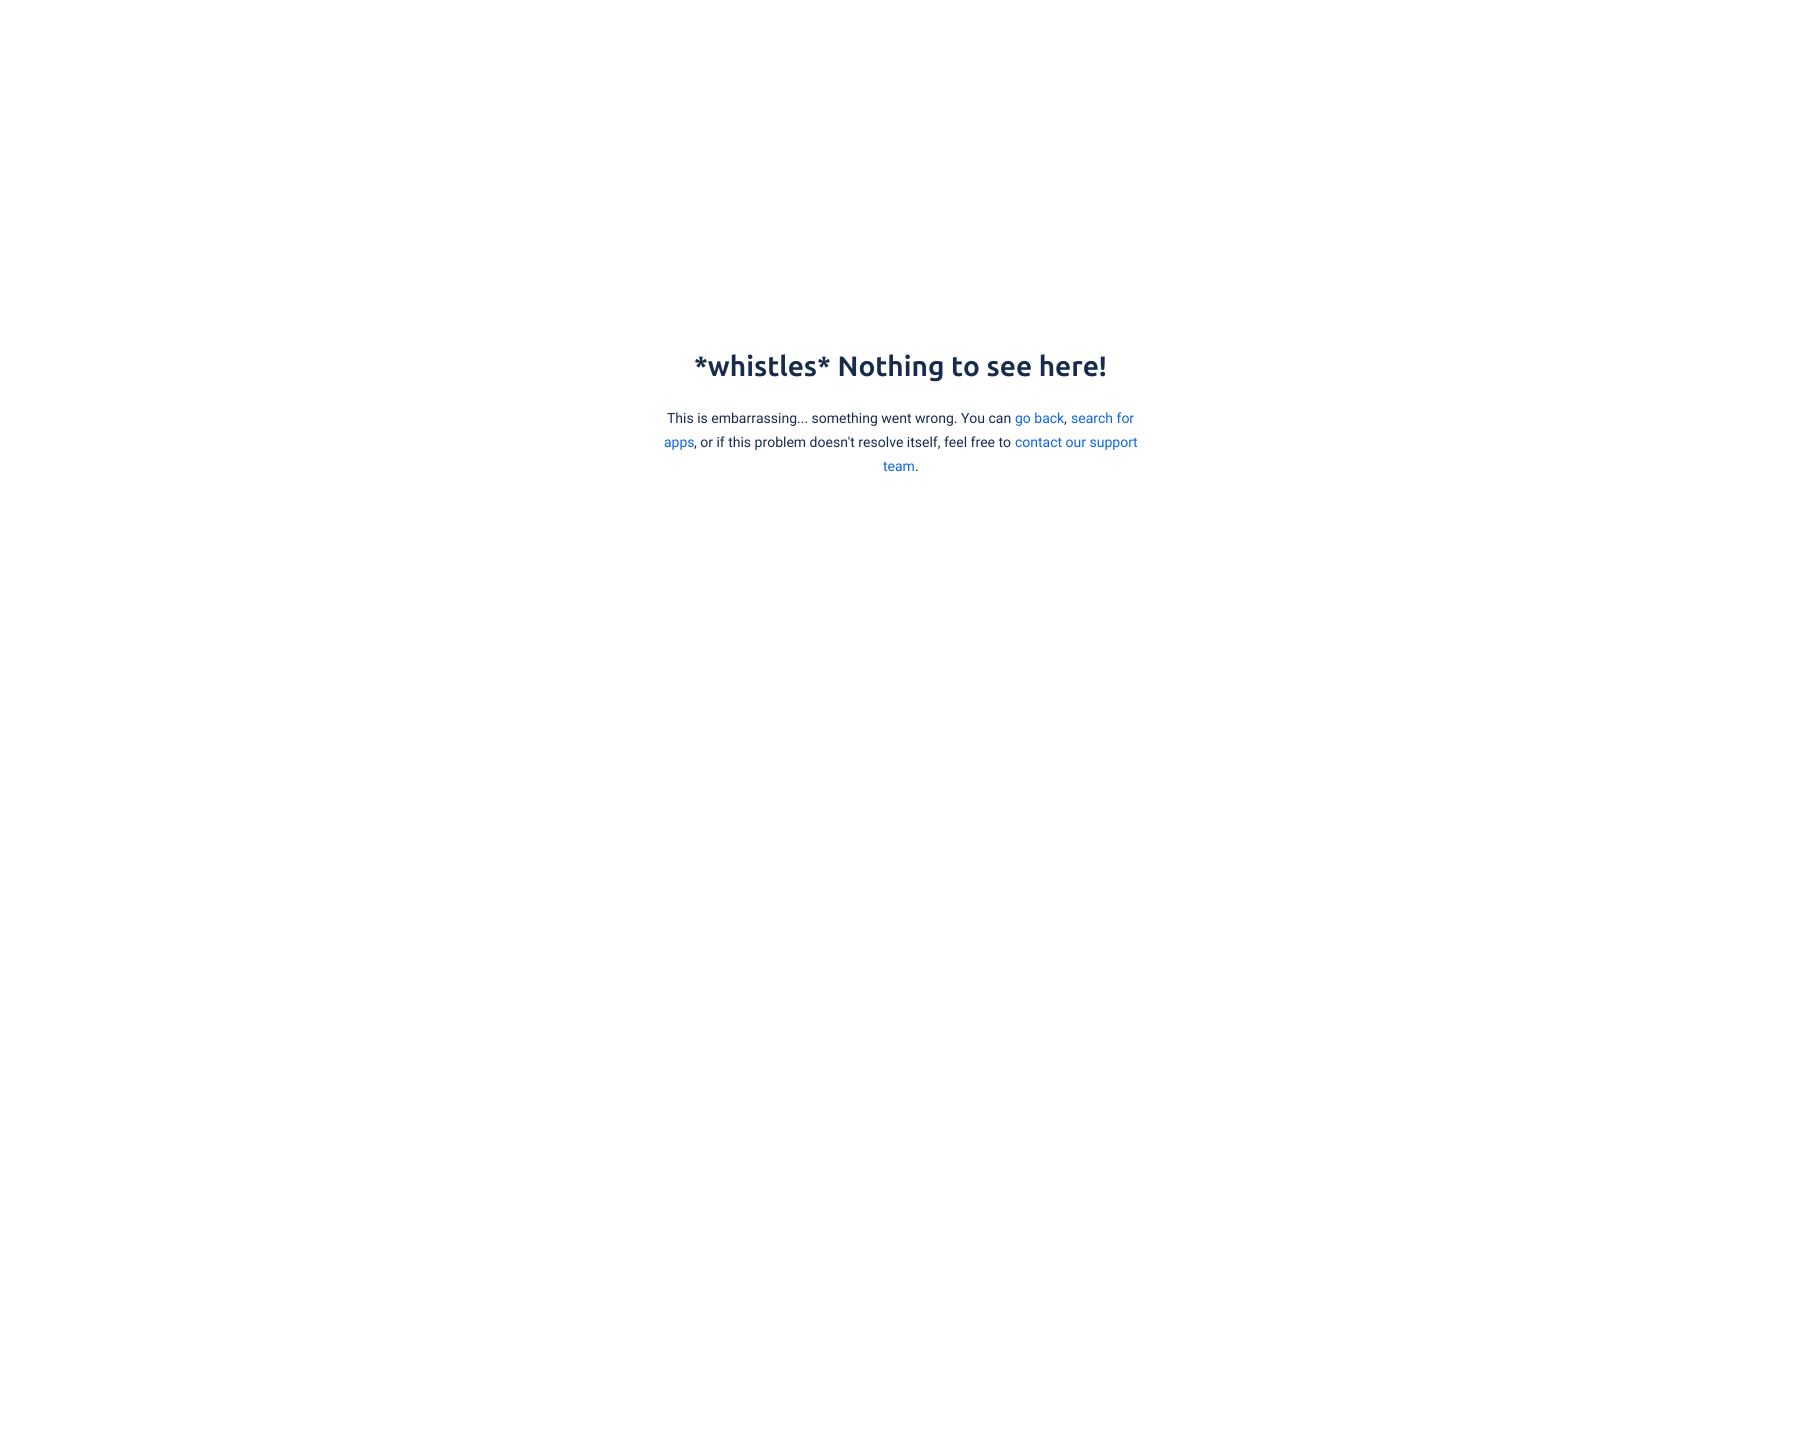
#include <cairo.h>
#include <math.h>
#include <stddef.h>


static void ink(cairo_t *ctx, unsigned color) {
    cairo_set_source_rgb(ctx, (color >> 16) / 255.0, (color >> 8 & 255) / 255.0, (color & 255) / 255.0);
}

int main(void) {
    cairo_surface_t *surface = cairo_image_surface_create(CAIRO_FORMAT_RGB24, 1801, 1433);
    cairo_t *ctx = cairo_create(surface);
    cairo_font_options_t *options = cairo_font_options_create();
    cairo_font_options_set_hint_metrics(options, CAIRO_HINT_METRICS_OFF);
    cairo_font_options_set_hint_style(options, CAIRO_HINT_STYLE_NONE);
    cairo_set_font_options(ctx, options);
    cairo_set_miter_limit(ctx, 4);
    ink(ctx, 0xFFFFFF);
    cairo_paint(ctx);
    cairo_select_font_face(ctx, "Ubuntu", CAIRO_FONT_SLANT_NORMAL, CAIRO_FONT_WEIGHT_BOLD);
    cairo_set_font_size(ctx, 28);
    ink(ctx, 0x172B4D);
    cairo_move_to(ctx, 694, 376);
    cairo_show_text(ctx, "*whistles* Nothing to see here!");
    cairo_select_font_face(ctx, "Roboto", CAIRO_FONT_SLANT_NORMAL, CAIRO_FONT_WEIGHT_NORMAL);
    cairo_set_font_size(ctx, 14);
    cairo_move_to(ctx, 667, 423);
    cairo_show_text(ctx, "This is embarrassing... something went wrong. You can");
    ink(ctx, 0x0C66E4);
    cairo_move_to(ctx, 1015, 423);
    cairo_show_text(ctx, "go back");
    ink(ctx, 0x172B4D);
    cairo_move_to(ctx, 1064, 423);
    cairo_show_text(ctx, ",");
    ink(ctx, 0x0C66E4);
    cairo_move_to(ctx, 1071, 423);
    cairo_show_text(ctx, "search for");
    cairo_move_to(ctx, 664, 447);
    cairo_show_text(ctx, "apps");
    ink(ctx, 0x172B4D);
    cairo_move_to(ctx, 694, 447);
    cairo_show_text(ctx, ", or if this problem doesn't resolve itself, feel free to");
    ink(ctx, 0x0C66E4);
    cairo_move_to(ctx, 1015, 447);
    cairo_show_text(ctx, "contact our support");
    cairo_move_to(ctx, 883, 471);
    cairo_show_text(ctx, "team");
    ink(ctx, 0x172B4D);
    cairo_move_to(ctx, 915, 471);
    cairo_show_text(ctx, ".");
    cairo_surface_write_to_png(surface, "image.png");
    cairo_font_options_destroy(options);
    cairo_destroy(ctx);
    cairo_surface_destroy(surface);
    return 0;
}
